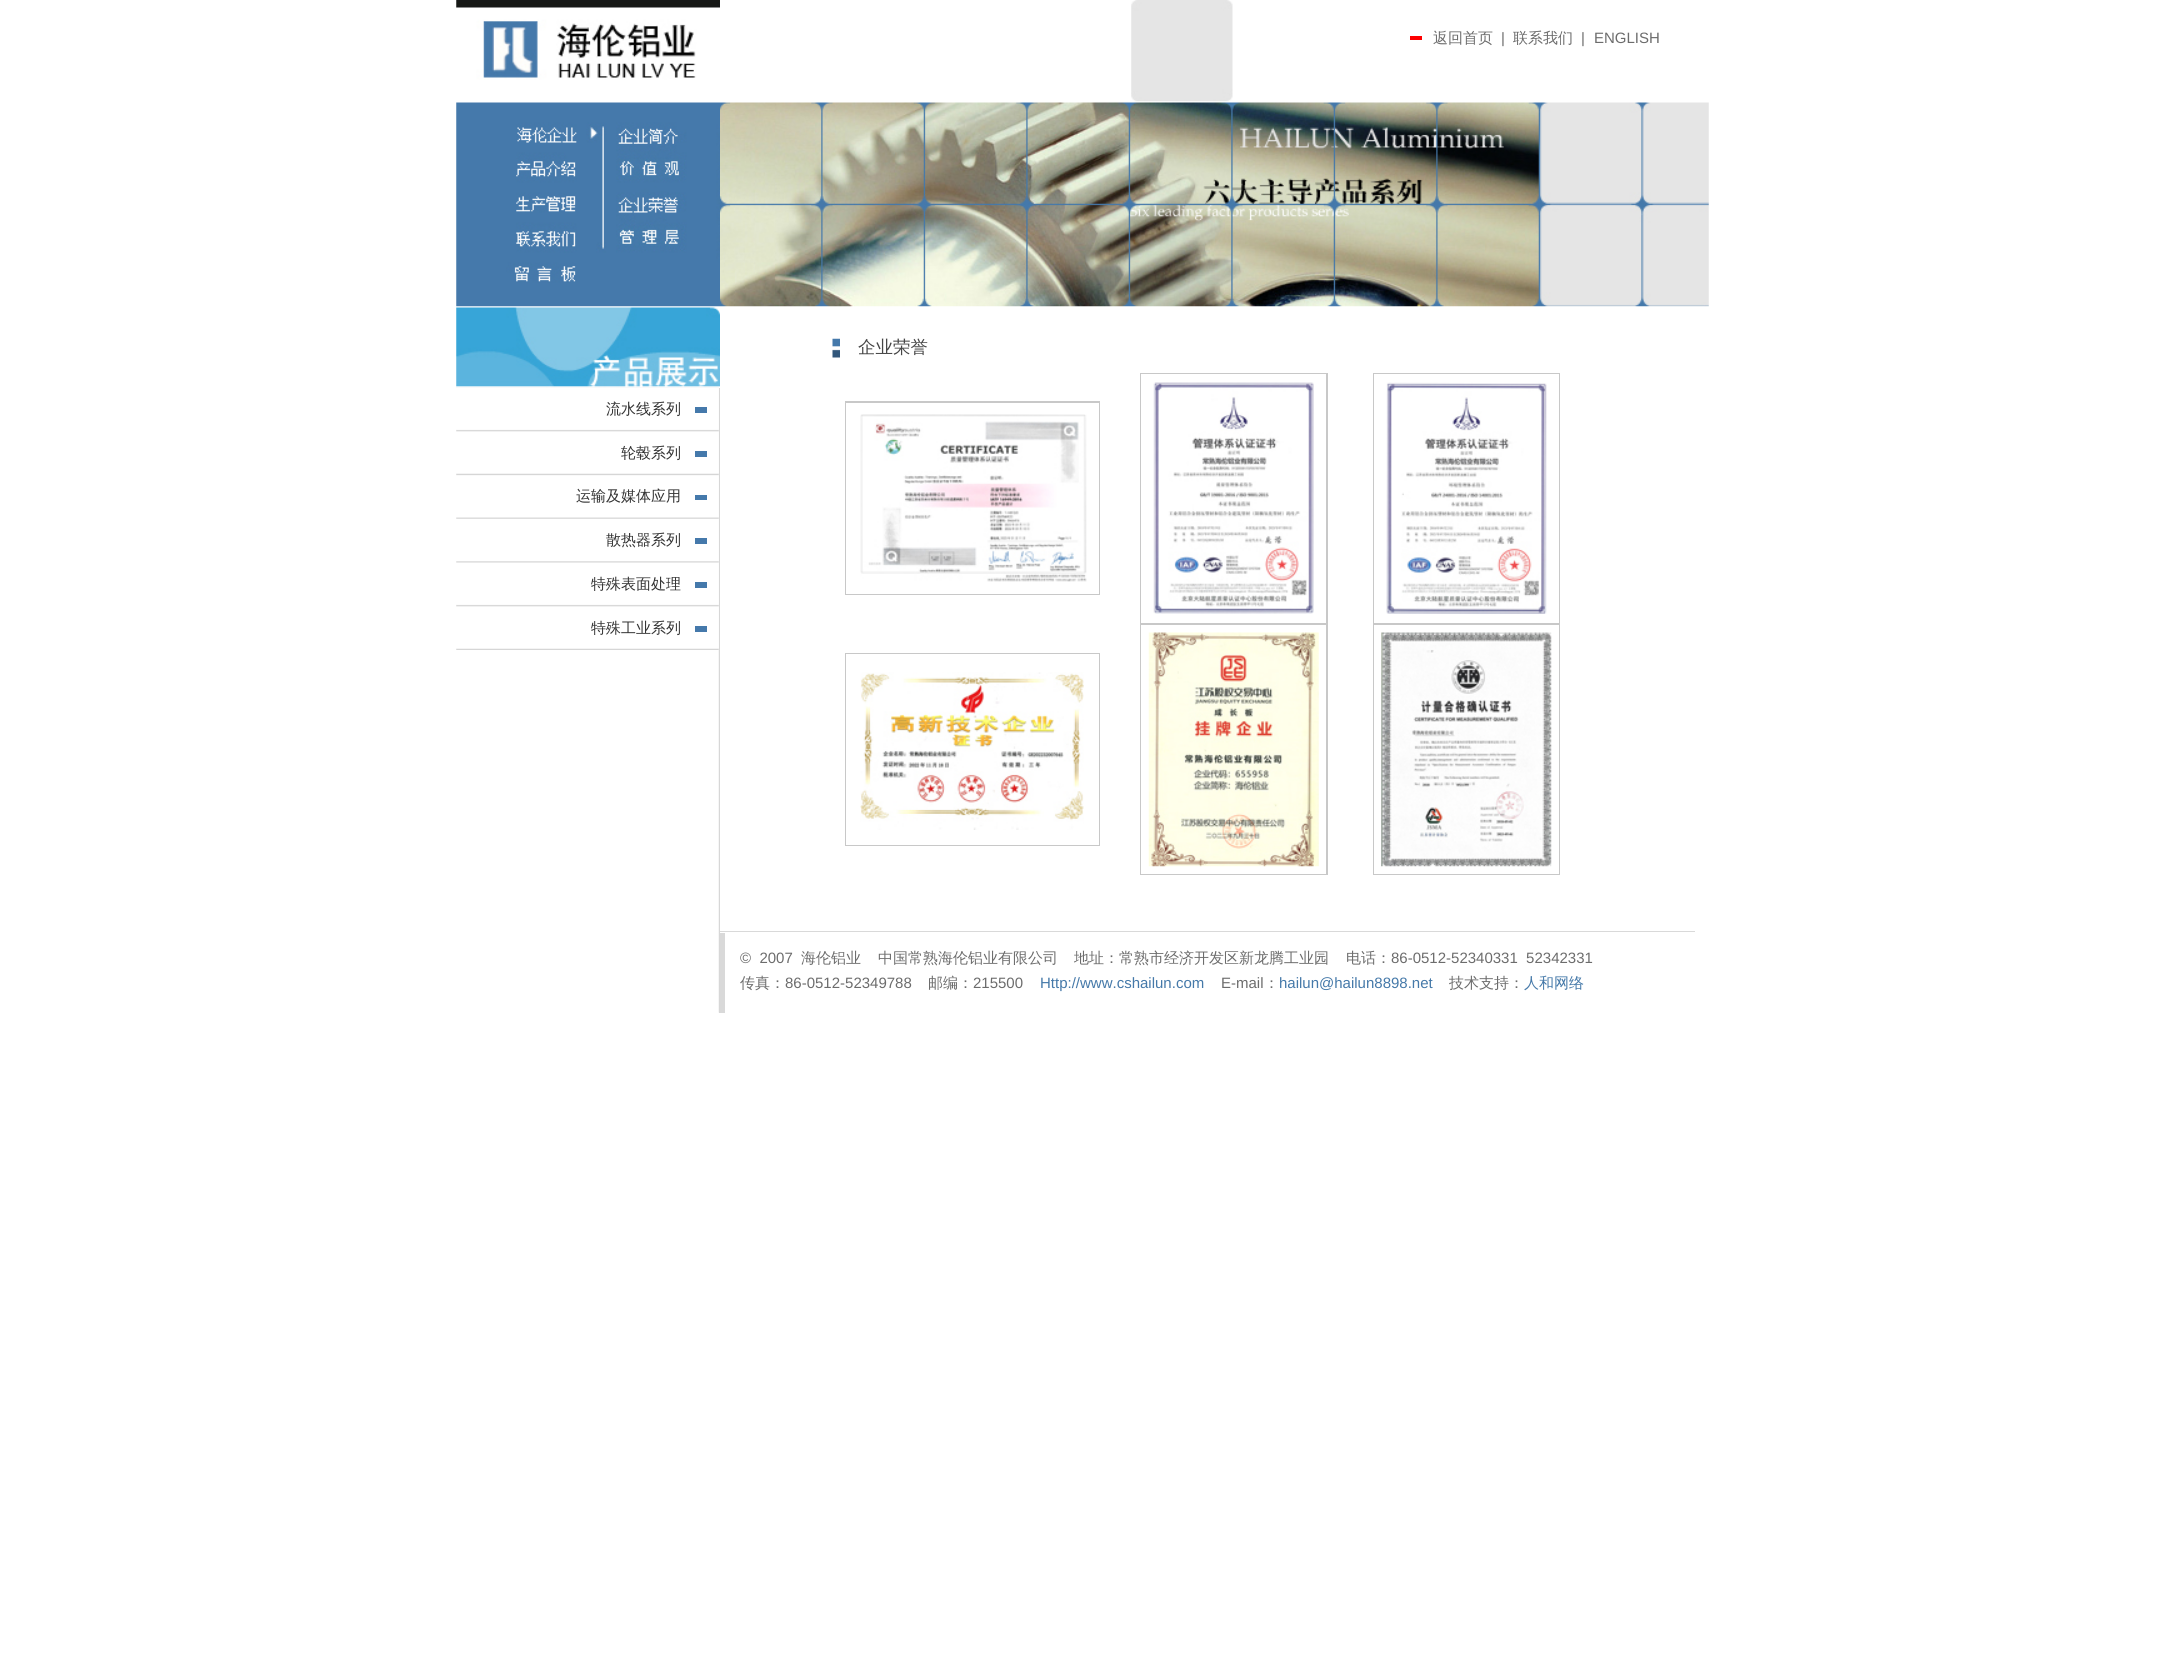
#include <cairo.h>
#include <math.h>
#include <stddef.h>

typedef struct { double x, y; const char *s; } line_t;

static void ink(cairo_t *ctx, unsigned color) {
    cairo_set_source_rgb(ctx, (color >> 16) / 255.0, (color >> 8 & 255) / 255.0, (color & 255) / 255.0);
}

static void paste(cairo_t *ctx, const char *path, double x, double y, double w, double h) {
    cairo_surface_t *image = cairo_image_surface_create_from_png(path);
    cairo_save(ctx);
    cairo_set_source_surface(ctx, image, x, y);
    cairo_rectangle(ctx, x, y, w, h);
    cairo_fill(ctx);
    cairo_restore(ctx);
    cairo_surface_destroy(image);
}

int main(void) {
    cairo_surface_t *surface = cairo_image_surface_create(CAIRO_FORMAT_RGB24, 2166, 1661);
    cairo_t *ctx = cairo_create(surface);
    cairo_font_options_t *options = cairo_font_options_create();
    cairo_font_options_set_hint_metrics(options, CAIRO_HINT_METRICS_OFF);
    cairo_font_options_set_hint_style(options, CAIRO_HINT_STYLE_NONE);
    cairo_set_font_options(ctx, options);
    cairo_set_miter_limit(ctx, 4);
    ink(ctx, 0xFFFFFF);
    cairo_paint(ctx);
    paste(ctx, "media/1.png", 456, 0, 264, 80);
    paste(ctx, "media/2.png", 1131, 0, 102, 102);
    ink(ctx, 0xFE0001);
    cairo_rectangle(ctx, 1410, 36, 12, 4);
    cairo_fill(ctx);
    cairo_select_font_face(ctx, "WenQuanYi Zen Hei Medium", CAIRO_FONT_SLANT_NORMAL, CAIRO_FONT_WEIGHT_NORMAL);
    cairo_set_font_size(ctx, 15);
    ink(ctx, 0x6C6C6C);
    cairo_move_to(ctx, 1433, 43);
    cairo_show_text(ctx, "返回首页");
    cairo_select_font_face(ctx, "Liberation Sans", CAIRO_FONT_SLANT_NORMAL, CAIRO_FONT_WEIGHT_NORMAL);
    cairo_move_to(ctx, 1501, 43);
    cairo_show_text(ctx, "|");
    cairo_select_font_face(ctx, "WenQuanYi Zen Hei Medium", CAIRO_FONT_SLANT_NORMAL, CAIRO_FONT_WEIGHT_NORMAL);
    cairo_move_to(ctx, 1513, 43);
    cairo_show_text(ctx, "联系我们");
    cairo_select_font_face(ctx, "Liberation Sans", CAIRO_FONT_SLANT_NORMAL, CAIRO_FONT_WEIGHT_NORMAL);
    cairo_move_to(ctx, 1581, 43);
    cairo_show_text(ctx, "|");
    cairo_move_to(ctx, 1594, 43);
    cairo_show_text(ctx, "ENGLISH");
    paste(ctx, "media/3.png", 456, 102, 264, 205);
    paste(ctx, "media/4.png", 720, 102, 990, 205);
    paste(ctx, "media/6.png", 718, 387, 1, 626);
    paste(ctx, "media/7.png", 456, 387, 263, 263);
    paste(ctx, "media/5.png", 456, 307, 264, 81);
    cairo_select_font_face(ctx, "WenQuanYi Zen Hei Medium", CAIRO_FONT_SLANT_NORMAL, CAIRO_FONT_WEIGHT_NORMAL);
    ink(ctx, 0x333333);
    cairo_move_to(ctx, 606, 414);
    cairo_show_text(ctx, "流水线系列");
    ink(ctx, 0x4579AB);
    cairo_rectangle(ctx, 695, 407, 12, 6);
    cairo_fill(ctx);
    ink(ctx, 0x333333);
    cairo_move_to(ctx, 621, 458);
    cairo_show_text(ctx, "轮毂系列");
    ink(ctx, 0x4579AB);
    cairo_rectangle(ctx, 695, 451, 12, 6);
    cairo_fill(ctx);
    ink(ctx, 0x333333);
    cairo_move_to(ctx, 576, 501);
    cairo_show_text(ctx, "运输及媒体应用");
    ink(ctx, 0x4579AB);
    cairo_rectangle(ctx, 695, 495, 12, 5);
    cairo_fill(ctx);
    ink(ctx, 0x333333);
    cairo_move_to(ctx, 606, 545);
    cairo_show_text(ctx, "散热器系列");
    ink(ctx, 0x4579AB);
    cairo_rectangle(ctx, 695, 538, 12, 6);
    cairo_fill(ctx);
    ink(ctx, 0x333333);
    cairo_move_to(ctx, 591, 589);
    cairo_show_text(ctx, "特殊表面处理");
    ink(ctx, 0x4579AB);
    cairo_rectangle(ctx, 695, 582, 12, 6);
    cairo_fill(ctx);
    ink(ctx, 0x333333);
    cairo_move_to(ctx, 591, 633);
    cairo_show_text(ctx, "特殊工业系列");
    ink(ctx, 0x4579AB);
    cairo_rectangle(ctx, 695, 626, 12, 6);
    cairo_fill(ctx);
    ink(ctx, 0xD7D7D7);
    cairo_rectangle(ctx, 719, 388, 1, 625);
    cairo_fill(ctx);
    paste(ctx, "media/8.png", 832, 338, 8, 20);
    cairo_set_font_size(ctx, 17.5);
    ink(ctx, 0x464646);
    cairo_move_to(ctx, 858, 353);
    cairo_show_text(ctx, "企业荣誉");
    ink(ctx, 0xC8C8C8);
    cairo_rectangle(ctx, 845, 401, 255, 194);
    cairo_fill(ctx);
    ink(ctx, 0xFFFFFF);
    cairo_rectangle(ctx, 846, 403, 253, 191);
    cairo_fill(ctx);
    paste(ctx, "media/9.png", 860, 414, 227, 168);
    ink(ctx, 0xC8C8C8);
    cairo_rectangle(ctx, 1140, 373, 188, 502);
    cairo_fill(ctx);
    ink(ctx, 0xFFFFFF);
    cairo_rectangle(ctx, 1141, 374, 185, 249);
    cairo_fill(ctx);
    paste(ctx, "media/10.png", 1153, 382, 161, 232);
    ink(ctx, 0xC8C8C8);
    cairo_rectangle(ctx, 1373, 373, 187, 502);
    cairo_fill(ctx);
    ink(ctx, 0xFFFFFF);
    cairo_rectangle(ctx, 1374, 374, 185, 249);
    cairo_fill(ctx);
    paste(ctx, "media/11.png", 1386, 382, 161, 232);
    ink(ctx, 0xC8C8C8);
    cairo_rectangle(ctx, 845, 653, 255, 193);
    cairo_fill(ctx);
    ink(ctx, 0xFFFFFF);
    cairo_rectangle(ctx, 846, 654, 253, 191);
    cairo_fill(ctx);
    paste(ctx, "media/12.png", 860, 672, 224, 158);
    cairo_rectangle(ctx, 1141, 625, 185, 249);
    cairo_fill(ctx);
    paste(ctx, "media/13.png", 1148, 632, 171, 235);
    cairo_rectangle(ctx, 1374, 625, 185, 249);
    cairo_fill(ctx);
    paste(ctx, "media/14.png", 1381, 632, 171, 235);
    ink(ctx, 0xD9D9D9);
    cairo_rectangle(ctx, 720, 931, 975, 1);
    cairo_fill(ctx);
    cairo_rectangle(ctx, 720, 933, 5, 80);
    cairo_fill(ctx);
    cairo_select_font_face(ctx, "Liberation Sans", CAIRO_FONT_SLANT_NORMAL, CAIRO_FONT_WEIGHT_NORMAL);
    cairo_set_font_size(ctx, 15);
    ink(ctx, 0x6C6C6C);
    cairo_move_to(ctx, 740, 963);
    cairo_show_text(ctx, "©  2007");
    cairo_select_font_face(ctx, "WenQuanYi Zen Hei Medium", CAIRO_FONT_SLANT_NORMAL, CAIRO_FONT_WEIGHT_NORMAL);
    {
        static const line_t items[] = {
            {801, 963, "海伦铝业"},
            {878, 963, "中国常熟海伦铝业有限公司"},
            {1074, 963, "地址：常熟市经济开发区新龙腾工业园"},
            {1346, 963, "电话："},
        };
        for (size_t i = 0; i < sizeof items / sizeof *items; i++) {
            cairo_move_to(ctx, items[i].x, items[i].y);
            cairo_show_text(ctx, items[i].s);
        }
    }
    cairo_select_font_face(ctx, "Liberation Sans", CAIRO_FONT_SLANT_NORMAL, CAIRO_FONT_WEIGHT_NORMAL);
    cairo_move_to(ctx, 1391, 963);
    cairo_show_text(ctx, "86-0512-52340331  52342331");
    cairo_select_font_face(ctx, "WenQuanYi Zen Hei Medium", CAIRO_FONT_SLANT_NORMAL, CAIRO_FONT_WEIGHT_NORMAL);
    cairo_move_to(ctx, 740, 988);
    cairo_show_text(ctx, "传真：");
    cairo_select_font_face(ctx, "Liberation Sans", CAIRO_FONT_SLANT_NORMAL, CAIRO_FONT_WEIGHT_NORMAL);
    cairo_move_to(ctx, 785, 988);
    cairo_show_text(ctx, "86-0512-52349788");
    cairo_select_font_face(ctx, "WenQuanYi Zen Hei Medium", CAIRO_FONT_SLANT_NORMAL, CAIRO_FONT_WEIGHT_NORMAL);
    cairo_move_to(ctx, 928, 988);
    cairo_show_text(ctx, "邮编：");
    cairo_select_font_face(ctx, "Liberation Sans", CAIRO_FONT_SLANT_NORMAL, CAIRO_FONT_WEIGHT_NORMAL);
    cairo_move_to(ctx, 973, 988);
    cairo_show_text(ctx, "215500");
    ink(ctx, 0x4579A9);
    cairo_move_to(ctx, 1040, 988);
    cairo_show_text(ctx, "Http://www.cshailun.com");
    ink(ctx, 0x6C6C6C);
    cairo_move_to(ctx, 1221, 988);
    cairo_show_text(ctx, "E-mail");
    cairo_select_font_face(ctx, "WenQuanYi Zen Hei Medium", CAIRO_FONT_SLANT_NORMAL, CAIRO_FONT_WEIGHT_NORMAL);
    cairo_move_to(ctx, 1264, 988);
    cairo_show_text(ctx, "：");
    cairo_select_font_face(ctx, "Liberation Sans", CAIRO_FONT_SLANT_NORMAL, CAIRO_FONT_WEIGHT_NORMAL);
    ink(ctx, 0x4579A9);
    cairo_move_to(ctx, 1279, 988);
    cairo_show_text(ctx, "hailun@hailun8898.net");
    cairo_select_font_face(ctx, "WenQuanYi Zen Hei Medium", CAIRO_FONT_SLANT_NORMAL, CAIRO_FONT_WEIGHT_NORMAL);
    ink(ctx, 0x6C6C6C);
    cairo_move_to(ctx, 1449, 988);
    cairo_show_text(ctx, "技术支持：");
    ink(ctx, 0x4579A9);
    cairo_move_to(ctx, 1524, 988);
    cairo_show_text(ctx, "人和网络");
    cairo_surface_write_to_png(surface, "image.png");
    cairo_font_options_destroy(options);
    cairo_destroy(ctx);
    cairo_surface_destroy(surface);
    return 0;
}
